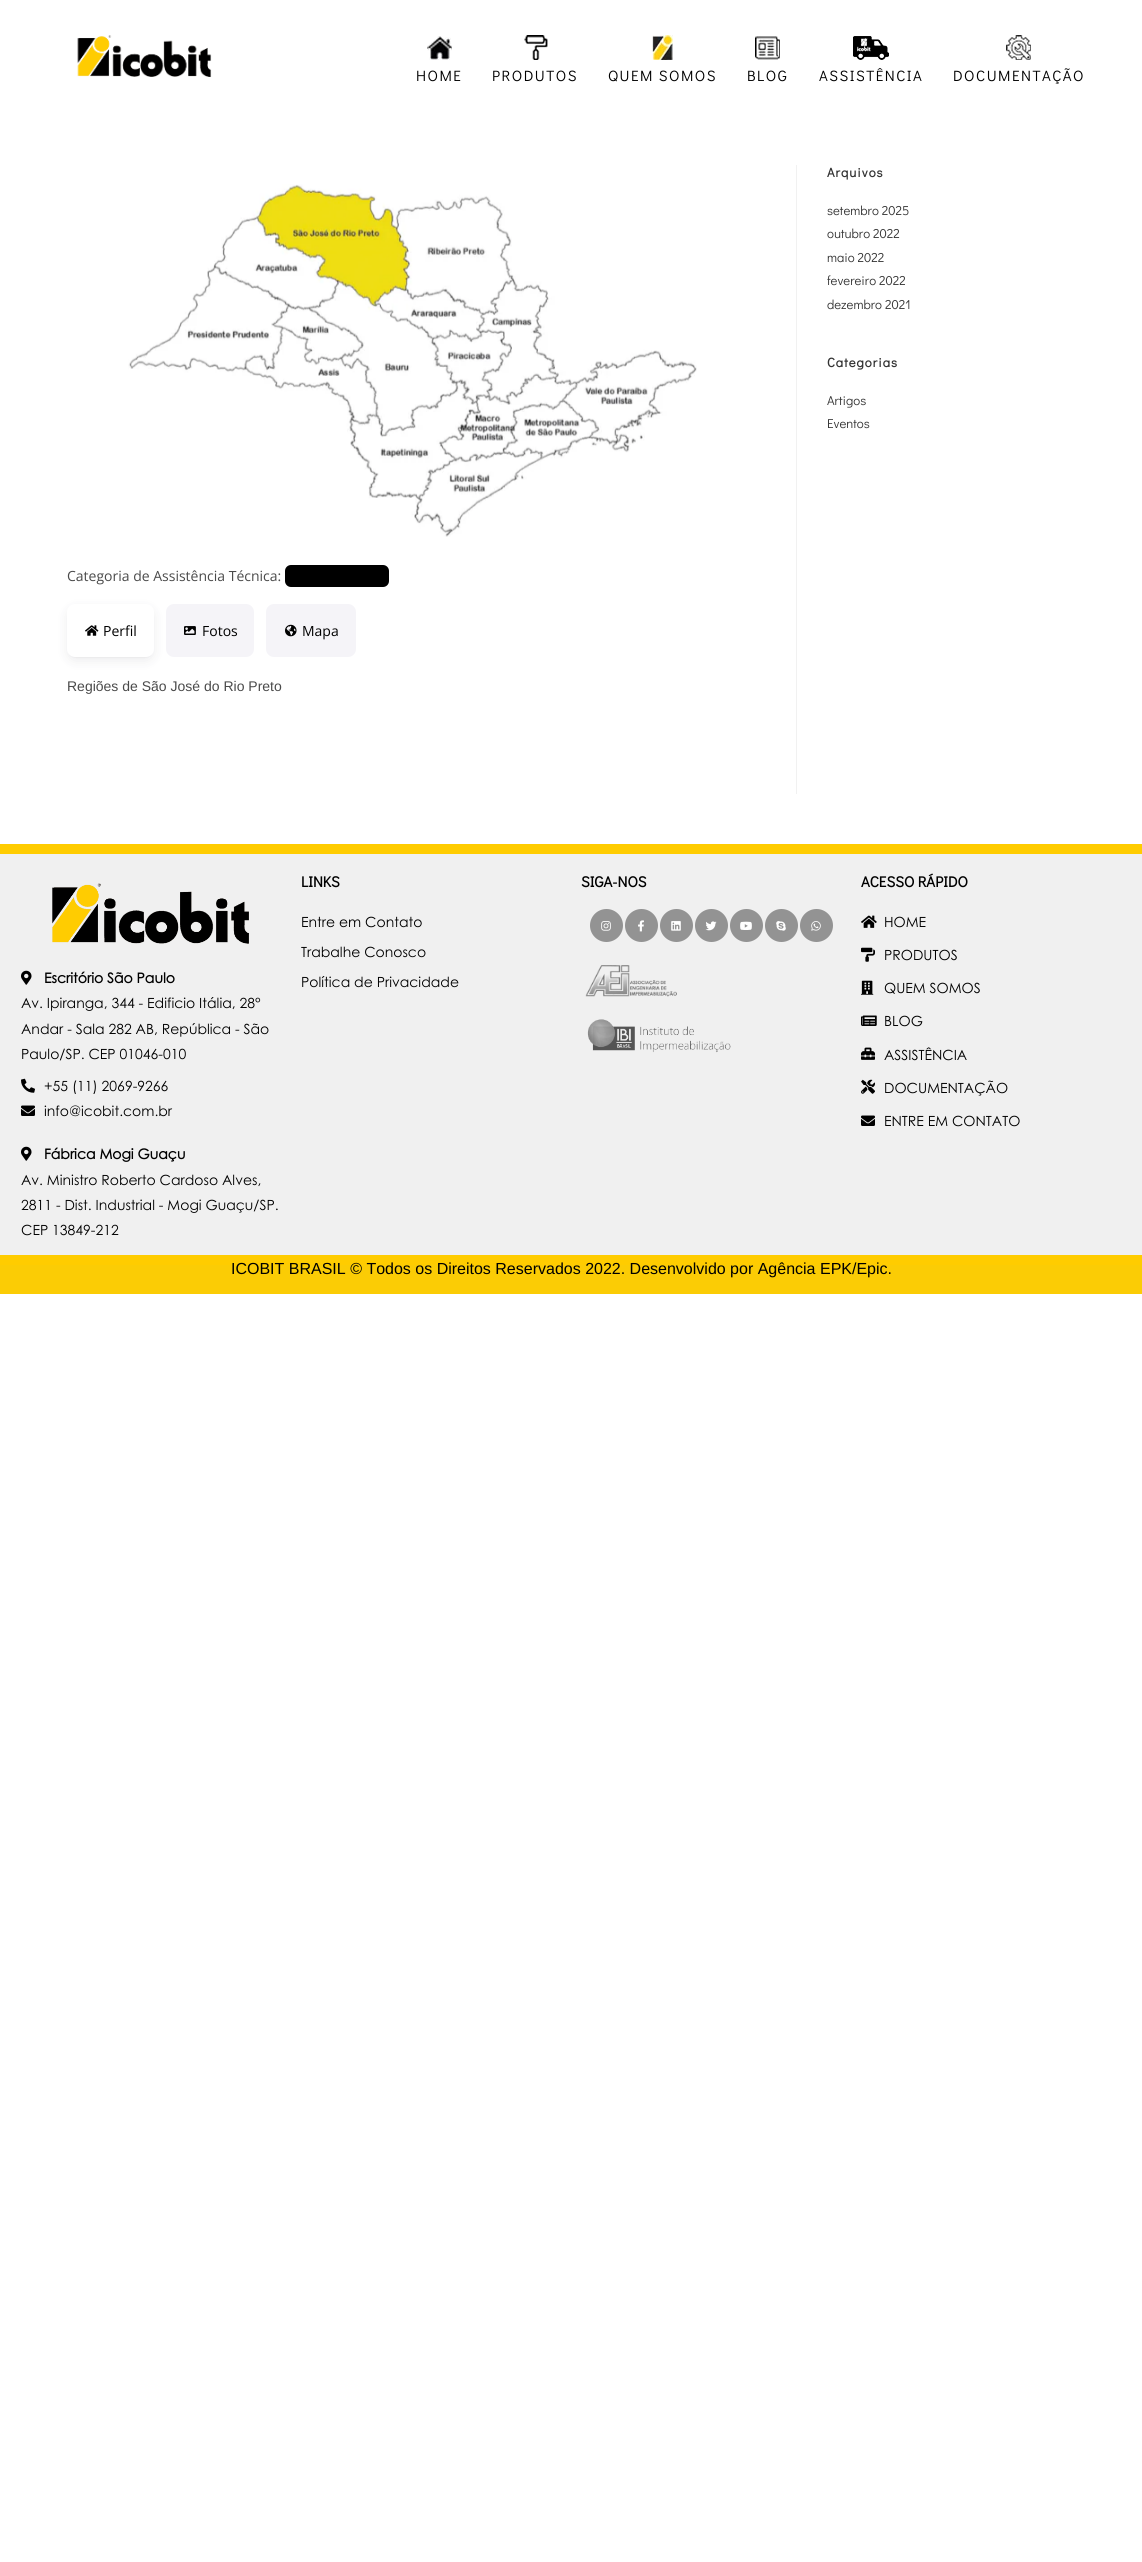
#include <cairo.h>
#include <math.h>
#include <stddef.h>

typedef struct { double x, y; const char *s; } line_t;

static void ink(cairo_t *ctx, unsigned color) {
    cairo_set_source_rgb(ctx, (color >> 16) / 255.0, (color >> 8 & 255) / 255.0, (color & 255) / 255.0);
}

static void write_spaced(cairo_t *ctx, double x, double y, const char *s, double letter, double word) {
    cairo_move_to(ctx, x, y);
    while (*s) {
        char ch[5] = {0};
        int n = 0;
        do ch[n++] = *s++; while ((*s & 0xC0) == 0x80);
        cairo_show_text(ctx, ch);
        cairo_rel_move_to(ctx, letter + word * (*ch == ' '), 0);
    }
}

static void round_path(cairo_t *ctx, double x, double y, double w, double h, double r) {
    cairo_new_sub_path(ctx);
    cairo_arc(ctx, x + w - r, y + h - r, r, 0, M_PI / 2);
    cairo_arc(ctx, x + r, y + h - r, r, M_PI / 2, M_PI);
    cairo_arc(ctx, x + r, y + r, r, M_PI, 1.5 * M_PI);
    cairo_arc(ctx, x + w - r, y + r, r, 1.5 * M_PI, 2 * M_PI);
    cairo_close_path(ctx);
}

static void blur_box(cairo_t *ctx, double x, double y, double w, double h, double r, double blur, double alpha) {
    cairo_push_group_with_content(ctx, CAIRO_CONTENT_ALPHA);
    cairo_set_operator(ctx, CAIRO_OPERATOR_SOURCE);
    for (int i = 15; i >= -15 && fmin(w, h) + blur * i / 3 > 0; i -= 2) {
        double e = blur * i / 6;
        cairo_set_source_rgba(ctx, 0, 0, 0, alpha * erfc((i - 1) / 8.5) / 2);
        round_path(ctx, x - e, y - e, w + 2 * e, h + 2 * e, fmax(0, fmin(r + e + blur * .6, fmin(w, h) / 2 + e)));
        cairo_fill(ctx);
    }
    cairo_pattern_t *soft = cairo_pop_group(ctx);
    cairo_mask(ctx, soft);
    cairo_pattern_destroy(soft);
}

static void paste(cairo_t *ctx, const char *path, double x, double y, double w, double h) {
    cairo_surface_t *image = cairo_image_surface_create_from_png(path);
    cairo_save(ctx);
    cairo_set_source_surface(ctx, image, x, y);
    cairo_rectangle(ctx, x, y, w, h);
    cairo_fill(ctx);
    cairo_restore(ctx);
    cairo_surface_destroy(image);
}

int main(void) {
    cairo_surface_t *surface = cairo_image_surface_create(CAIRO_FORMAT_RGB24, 1142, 2562);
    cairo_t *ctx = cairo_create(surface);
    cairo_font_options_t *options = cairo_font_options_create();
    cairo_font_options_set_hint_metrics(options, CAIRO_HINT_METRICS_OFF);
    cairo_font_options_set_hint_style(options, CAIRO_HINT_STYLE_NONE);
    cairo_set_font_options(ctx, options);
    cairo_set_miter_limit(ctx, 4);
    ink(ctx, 0xFFFFFF);
    cairo_paint(ctx);
    paste(ctx, "media/1.png", 77, 35, 135, 43);
    paste(ctx, "media/2.png", 427, 36, 25, 24);
    cairo_select_font_face(ctx, "Didact Gothic", CAIRO_FONT_SLANT_NORMAL, CAIRO_FONT_WEIGHT_NORMAL);
    cairo_set_font_size(ctx, 15);
    ink(ctx, 0x000000);
    write_spaced(ctx, 416, 81, "HOME", 1.5, 0);
    paste(ctx, "media/3.png", 524, 35, 24, 25);
    write_spaced(ctx, 492, 81, "PRODUTOS", 1.5, 0);
    paste(ctx, "media/4.png", 652, 35, 21, 25);
    write_spaced(ctx, 608, 81, "QUEM SOMOS", 1.5, 0);
    paste(ctx, "media/5.png", 755, 36, 25, 24);
    write_spaced(ctx, 747, 81, "BLOG", 1.5, 0);
    paste(ctx, "media/6.png", 853, 36, 36, 24);
    write_spaced(ctx, 819, 81, "ASSISTÊNCIA", 1.5, 0);
    paste(ctx, "media/7.png", 1006, 35, 25, 25);
    write_spaced(ctx, 953, 81, "DOCUMENTAÇÃO", 1.5, 0);
    cairo_select_font_face(ctx, "Didact Gothic", CAIRO_FONT_SLANT_NORMAL, CAIRO_FONT_WEIGHT_BOLD);
    cairo_set_font_size(ctx, 13);
    ink(ctx, 0x333333);
    write_spaced(ctx, 827, 177, "Arquivos", 1, 0);
    cairo_select_font_face(ctx, "Didact Gothic", CAIRO_FONT_SLANT_NORMAL, CAIRO_FONT_WEIGHT_NORMAL);
    {
        static const line_t items[] = {
            {827, 215, "setembro 2025"},
            {827, 238, "outubro 2022"},
            {827, 262, "maio 2022"},
            {827, 285, "fevereiro 2022"},
            {827, 309, "dezembro 2021"},
        };
        for (size_t i = 0; i < sizeof items / sizeof *items; i++) {
            cairo_move_to(ctx, items[i].x, items[i].y);
            cairo_show_text(ctx, items[i].s);
        }
    }
    cairo_select_font_face(ctx, "Didact Gothic", CAIRO_FONT_SLANT_NORMAL, CAIRO_FONT_WEIGHT_BOLD);
    write_spaced(ctx, 827, 367, "Categorias", 1, 0);
    cairo_select_font_face(ctx, "Didact Gothic", CAIRO_FONT_SLANT_NORMAL, CAIRO_FONT_WEIGHT_NORMAL);
    cairo_move_to(ctx, 827, 405);
    cairo_show_text(ctx, "Artigos");
    cairo_move_to(ctx, 827, 428);
    cairo_show_text(ctx, "Eventos");
    ink(ctx, 0xF1F1F1);
    cairo_rectangle(ctx, 796, 165, 1, 629);
    cairo_fill(ctx);
    paste(ctx, "media/8.png", 128, 184, 569, 353);
    cairo_select_font_face(ctx, "Open Sans", CAIRO_FONT_SLANT_NORMAL, CAIRO_FONT_WEIGHT_NORMAL);
    cairo_set_font_size(ctx, 14);
    ink(ctx, 0x4A4A4A);
    cairo_move_to(ctx, 67, 581);
    cairo_show_text(ctx, "Categoria de Assistência Técnica:");
    ink(ctx, 0x000000);
    round_path(ctx, 285, 565, 104, 22, 6);
    cairo_fill(ctx);
    ink(ctx, 0x1F1B2D);
    blur_box(ctx, 67, 608, 87, 53, 8, 6, 0.08);
    blur_box(ctx, 69, 608, 83, 49, 6, 1, 0.08);
    ink(ctx, 0xFFFFFF);
    round_path(ctx, 67, 604, 87, 53, 8);
    cairo_fill(ctx);
    paste(ctx, "media/9.png", 85, 625, 14, 11);
    ink(ctx, 0x000000);
    cairo_move_to(ctx, 103, 636);
    cairo_show_text(ctx, "Perfil");
    ink(ctx, 0xF5F4F8);
    round_path(ctx, 166, 604, 88, 53, 8);
    cairo_fill(ctx);
    paste(ctx, "media/10.png", 184, 626, 12, 9);
    ink(ctx, 0x000000);
    cairo_move_to(ctx, 202, 636);
    cairo_show_text(ctx, "Fotos");
    ink(ctx, 0xF5F4F8);
    round_path(ctx, 266, 604, 90, 53, 8);
    cairo_fill(ctx);
    paste(ctx, "media/11.png", 285, 624, 12, 13);
    ink(ctx, 0x000000);
    cairo_move_to(ctx, 302, 636);
    cairo_show_text(ctx, "Mapa");
    cairo_select_font_face(ctx, "Liberation Sans", CAIRO_FONT_SLANT_NORMAL, CAIRO_FONT_WEIGHT_NORMAL);
    ink(ctx, 0x4A4A4A);
    cairo_move_to(ctx, 67, 691);
    cairo_show_text(ctx, "Regiões de São José do Rio Preto");
    ink(ctx, 0xF0F0F0);
    cairo_rectangle(ctx, 0, 854, 1142, 401);
    cairo_fill(ctx);
    ink(ctx, 0xFFCC00);
    cairo_rectangle(ctx, 0, 844, 1142, 10);
    cairo_fill(ctx);
    cairo_select_font_face(ctx, "Didact Gothic", CAIRO_FONT_SLANT_NORMAL, CAIRO_FONT_WEIGHT_BOLD);
    cairo_set_font_size(ctx, 15);
    ink(ctx, 0x000000);
    cairo_move_to(ctx, 301, 887);
    cairo_show_text(ctx, "LINKS");
    cairo_select_font_face(ctx, "Century Gothic", CAIRO_FONT_SLANT_NORMAL, CAIRO_FONT_WEIGHT_NORMAL);
    cairo_set_font_size(ctx, 14);
    {
        static const line_t items[] = {
            {301, 927, "Entre em Contato"},
            {301, 957, "Trabalhe Conosco"},
            {301, 987, "Política de Privacidade"},
        };
        for (size_t i = 0; i < sizeof items / sizeof *items; i++) {
            cairo_move_to(ctx, items[i].x, items[i].y);
            cairo_show_text(ctx, items[i].s);
        }
    }
    cairo_select_font_face(ctx, "Didact Gothic", CAIRO_FONT_SLANT_NORMAL, CAIRO_FONT_WEIGHT_BOLD);
    cairo_set_font_size(ctx, 15);
    cairo_move_to(ctx, 581, 887);
    cairo_show_text(ctx, "SIGA-NOS");
    ink(ctx, 0x939393);
    cairo_new_path(ctx);
    cairo_arc(ctx, 606.5, 925.5, 16.5, 0, 2 * M_PI);
    cairo_fill(ctx);
    paste(ctx, "media/12.png", 601, 921, 10, 10);
    cairo_arc(ctx, 641.5, 925.5, 16.5, 0, 2 * M_PI);
    cairo_fill(ctx);
    paste(ctx, "media/13.png", 638, 920, 6, 12);
    cairo_arc(ctx, 676.5, 925.5, 16.5, 0, 2 * M_PI);
    cairo_fill(ctx);
    paste(ctx, "media/14.png", 671, 921, 10, 10);
    cairo_arc(ctx, 711.5, 925.5, 16.5, 0, 2 * M_PI);
    cairo_fill(ctx);
    paste(ctx, "media/15.png", 705, 921, 12, 10);
    cairo_arc(ctx, 746.5, 925.5, 16.5, 0, 2 * M_PI);
    cairo_fill(ctx);
    paste(ctx, "media/16.png", 740, 921, 12, 9);
    cairo_arc(ctx, 781.5, 925.5, 16.5, 0, 2 * M_PI);
    cairo_fill(ctx);
    paste(ctx, "media/17.png", 776, 921, 10, 10);
    cairo_arc(ctx, 816.5, 925.5, 16.5, 0, 2 * M_PI);
    cairo_fill(ctx);
    paste(ctx, "media/18.png", 811, 921, 10, 10);
    paste(ctx, "media/19.png", 585, 965, 92, 32);
    paste(ctx, "media/20.png", 587, 1019, 144, 34);
    ink(ctx, 0x000000);
    cairo_move_to(ctx, 861, 887);
    cairo_show_text(ctx, "ACESSO RÁPIDO");
    paste(ctx, "media/21.png", 861, 915, 16, 13);
    cairo_select_font_face(ctx, "Century Gothic", CAIRO_FONT_SLANT_NORMAL, CAIRO_FONT_WEIGHT_NORMAL);
    cairo_set_font_size(ctx, 14);
    cairo_move_to(ctx, 884, 927);
    cairo_show_text(ctx, "HOME");
    paste(ctx, "media/22.png", 861, 947, 14, 15);
    cairo_move_to(ctx, 884, 960);
    cairo_show_text(ctx, "PRODUTOS");
    paste(ctx, "media/23.png", 861, 980, 13, 15);
    cairo_move_to(ctx, 884, 993);
    cairo_show_text(ctx, "QUEM SOMOS");
    paste(ctx, "media/24.png", 861, 1015, 16, 11);
    cairo_move_to(ctx, 884, 1026);
    cairo_show_text(ctx, "BLOG");
    paste(ctx, "media/25.png", 861, 1047, 14, 13);
    cairo_move_to(ctx, 884, 1060);
    cairo_show_text(ctx, "ASSISTÊNCIA");
    paste(ctx, "media/26.png", 861, 1079, 14, 15);
    cairo_move_to(ctx, 884, 1093);
    cairo_show_text(ctx, "DOCUMENTAÇÃO");
    paste(ctx, "media/27.png", 861, 1115, 14, 11);
    cairo_move_to(ctx, 884, 1126);
    cairo_show_text(ctx, "ENTRE EM CONTATO");
    paste(ctx, "media/28.png", 52, 883, 197, 61);
    paste(ctx, "media/29.png", 21, 970, 11, 15);
    cairo_select_font_face(ctx, "Century Gothic", CAIRO_FONT_SLANT_NORMAL, CAIRO_FONT_WEIGHT_BOLD);
    cairo_move_to(ctx, 44, 983);
    cairo_show_text(ctx, "Escritório São Paulo");
    cairo_select_font_face(ctx, "Century Gothic", CAIRO_FONT_SLANT_NORMAL, CAIRO_FONT_WEIGHT_NORMAL);
    {
        static const line_t items[] = {
            {21, 1008, "Av. Ipiranga, 344 - Edificio Itália, 28°"},
            {21, 1034, "Andar - Sala 282 AB, República - São"},
            {21, 1059, "Paulo/SP. CEP 01046-010"},
        };
        for (size_t i = 0; i < sizeof items / sizeof *items; i++) {
            cairo_move_to(ctx, items[i].x, items[i].y);
            cairo_show_text(ctx, items[i].s);
        }
    }
    paste(ctx, "media/30.png", 21, 1078, 14, 15);
    cairo_move_to(ctx, 44, 1091);
    cairo_show_text(ctx, "+55 (11) 2069-9266");
    paste(ctx, "media/27.png", 21, 1105, 14, 11);
    cairo_move_to(ctx, 44, 1116);
    cairo_show_text(ctx, "info@icobit.com.br");
    paste(ctx, "media/29.png", 21, 1146, 11, 15);
    cairo_select_font_face(ctx, "Century Gothic", CAIRO_FONT_SLANT_NORMAL, CAIRO_FONT_WEIGHT_BOLD);
    cairo_move_to(ctx, 44, 1159);
    cairo_show_text(ctx, "Fábrica Mogi Guaçu");
    cairo_select_font_face(ctx, "Century Gothic", CAIRO_FONT_SLANT_NORMAL, CAIRO_FONT_WEIGHT_NORMAL);
    {
        static const line_t items[] = {
            {21, 1185, "Av. Ministro Roberto Cardoso Alves,"},
            {21, 1210, "2811 - Dist. Industrial - Mogi Guaçu/SP."},
            {21, 1235, "CEP 13849-212"},
        };
        for (size_t i = 0; i < sizeof items / sizeof *items; i++) {
            cairo_move_to(ctx, items[i].x, items[i].y);
            cairo_show_text(ctx, items[i].s);
        }
    }
    ink(ctx, 0xFBCC05);
    cairo_rectangle(ctx, 0, 1265, 1142, 29);
    cairo_fill(ctx);
    ink(ctx, 0xFFCC00);
    cairo_rectangle(ctx, 0, 1255, 1142, 10);
    cairo_fill(ctx);
    cairo_select_font_face(ctx, "Liberation Sans", CAIRO_FONT_SLANT_NORMAL, CAIRO_FONT_WEIGHT_NORMAL);
    cairo_set_font_size(ctx, 16);
    ink(ctx, 0x000000);
    cairo_move_to(ctx, 231, 1274);
    cairo_show_text(ctx, "ICOBIT BRASIL © Todos os Direitos Reservados 2022. Desenvolvido por Agência EPK/Epic.");
    cairo_surface_write_to_png(surface, "image.png");
    cairo_font_options_destroy(options);
    cairo_destroy(ctx);
    cairo_surface_destroy(surface);
    return 0;
}
